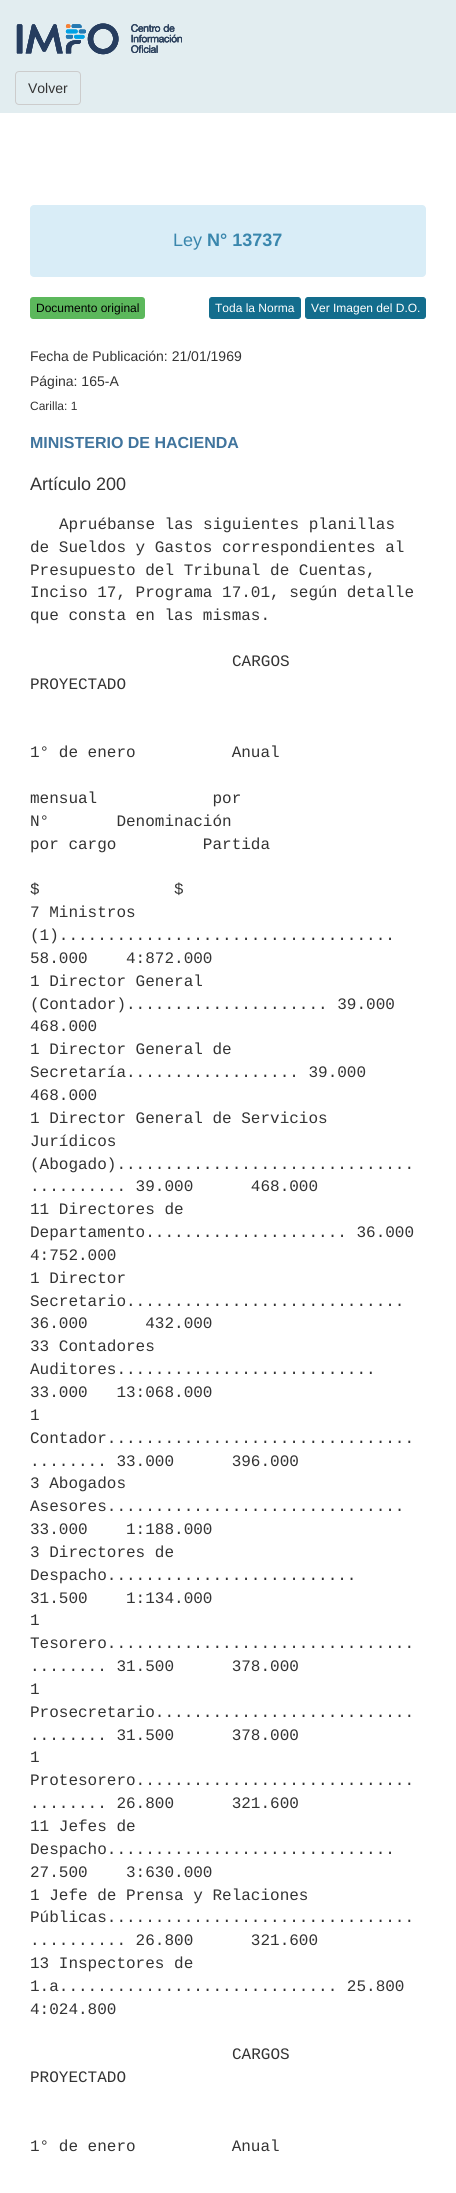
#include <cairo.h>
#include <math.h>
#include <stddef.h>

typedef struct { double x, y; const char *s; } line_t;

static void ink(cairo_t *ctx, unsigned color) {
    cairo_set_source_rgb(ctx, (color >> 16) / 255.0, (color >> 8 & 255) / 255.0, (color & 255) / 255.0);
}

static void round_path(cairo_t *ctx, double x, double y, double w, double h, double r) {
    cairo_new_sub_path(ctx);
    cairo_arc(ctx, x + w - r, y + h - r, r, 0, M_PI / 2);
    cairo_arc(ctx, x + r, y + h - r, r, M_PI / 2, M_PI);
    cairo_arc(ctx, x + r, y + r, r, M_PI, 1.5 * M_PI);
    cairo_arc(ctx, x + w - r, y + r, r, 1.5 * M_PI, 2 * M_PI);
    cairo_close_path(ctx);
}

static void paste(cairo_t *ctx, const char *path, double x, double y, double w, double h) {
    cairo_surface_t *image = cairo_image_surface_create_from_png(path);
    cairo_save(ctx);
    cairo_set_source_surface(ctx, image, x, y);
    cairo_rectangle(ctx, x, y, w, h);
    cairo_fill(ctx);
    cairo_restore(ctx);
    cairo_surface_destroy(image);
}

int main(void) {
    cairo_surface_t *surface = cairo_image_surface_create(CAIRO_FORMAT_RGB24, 456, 2193);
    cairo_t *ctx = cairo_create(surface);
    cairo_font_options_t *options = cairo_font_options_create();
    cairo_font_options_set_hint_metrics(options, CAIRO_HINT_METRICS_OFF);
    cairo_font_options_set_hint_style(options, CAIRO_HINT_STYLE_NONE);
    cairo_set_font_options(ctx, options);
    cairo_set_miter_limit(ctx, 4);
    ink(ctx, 0xFFFFFF);
    cairo_paint(ctx);
    ink(ctx, 0xE2EDF0);
    cairo_rectangle(ctx, 0, 0, 456, 113);
    cairo_fill(ctx);
    paste(ctx, "media/1.png", 16, 23, 166, 32);
    paste(ctx, "media/2.png", 16, 23, 166, 32);
    round_path(ctx, 15.5, 71.5, 65, 33, 3.5);
    ink(ctx, 0xCCCCCC);
    cairo_set_line_width(ctx, 1);
    cairo_stroke(ctx);
    cairo_select_font_face(ctx, "Liberation Sans", CAIRO_FONT_SLANT_NORMAL, CAIRO_FONT_WEIGHT_NORMAL);
    cairo_set_font_size(ctx, 14);
    ink(ctx, 0x333333);
    cairo_move_to(ctx, 28, 93);
    cairo_show_text(ctx, "Volver");
    ink(ctx, 0xD9EDF7);
    round_path(ctx, 30, 205, 396, 72, 4);
    cairo_fill(ctx);
    cairo_set_font_size(ctx, 18);
    ink(ctx, 0x3A87AD);
    cairo_move_to(ctx, 173, 246);
    cairo_show_text(ctx, "Ley");
    cairo_select_font_face(ctx, "Liberation Sans", CAIRO_FONT_SLANT_NORMAL, CAIRO_FONT_WEIGHT_BOLD);
    cairo_move_to(ctx, 207, 246);
    cairo_show_text(ctx, "N° 13737");
    ink(ctx, 0x5CB85C);
    round_path(ctx, 30, 297, 115, 22, 3);
    cairo_fill(ctx);
    cairo_select_font_face(ctx, "Liberation Sans", CAIRO_FONT_SLANT_NORMAL, CAIRO_FONT_WEIGHT_NORMAL);
    cairo_set_font_size(ctx, 12);
    ink(ctx, 0x000000);
    cairo_move_to(ctx, 36, 312);
    cairo_show_text(ctx, "Documento original");
    ink(ctx, 0x136D8D);
    round_path(ctx, 209.5, 297.5, 91, 21, 2.5);
    cairo_fill_preserve(ctx);
    cairo_stroke(ctx);
    ink(ctx, 0xFFFFFF);
    cairo_move_to(ctx, 215, 312);
    cairo_show_text(ctx, "Toda la Norma");
    ink(ctx, 0x136D8D);
    round_path(ctx, 305.5, 297.5, 120, 21, 2.5);
    cairo_fill_preserve(ctx);
    cairo_stroke(ctx);
    ink(ctx, 0xFFFFFF);
    cairo_move_to(ctx, 311, 312);
    cairo_show_text(ctx, "Ver Imagen del D.O.");
    cairo_set_font_size(ctx, 14);
    ink(ctx, 0x333333);
    cairo_move_to(ctx, 30, 361);
    cairo_show_text(ctx, "Fecha de Publicación: 21/01/1969");
    cairo_move_to(ctx, 30, 386);
    cairo_show_text(ctx, "Página: 165-A");
    cairo_set_font_size(ctx, 12);
    cairo_move_to(ctx, 30, 410);
    cairo_show_text(ctx, "Carilla: 1");
    cairo_select_font_face(ctx, "Liberation Sans", CAIRO_FONT_SLANT_NORMAL, CAIRO_FONT_WEIGHT_BOLD);
    cairo_set_font_size(ctx, 16);
    ink(ctx, 0x40749D);
    cairo_move_to(ctx, 30, 448);
    cairo_show_text(ctx, "MINISTERIO DE HACIENDA");
    cairo_select_font_face(ctx, "Liberation Sans", CAIRO_FONT_SLANT_NORMAL, CAIRO_FONT_WEIGHT_NORMAL);
    cairo_set_font_size(ctx, 18);
    ink(ctx, 0x333333);
    cairo_move_to(ctx, 30, 490);
    cairo_show_text(ctx, "Artículo 200");
    cairo_select_font_face(ctx, "Liberation Mono", CAIRO_FONT_SLANT_NORMAL, CAIRO_FONT_WEIGHT_NORMAL);
    cairo_set_font_size(ctx, 16);
    {
        static const line_t items[] = {
            {59, 529, "Apruébanse las siguientes planillas"},
            {30, 552, "de Sueldos y Gastos correspondientes al"},
            {30, 575, "Presupuesto del Tribunal de Cuentas,"},
            {30, 597, "Inciso 17, Programa 17.01, según detalle"},
            {30, 620, "que consta en las mismas."},
            {232, 666, "CARGOS"},
            {30, 689, "PROYECTADO"},
            {30, 757, "1° de enero          Anual"},
            {30, 803, "mensual            por"},
            {30, 826, "N°       Denominación"},
            {30, 849, "por cargo         Partida"},
            {30, 894, "$              $"},
            {30, 917, "7 Ministros"},
            {30, 940, "(1)..................................."},
            {30, 963, "58.000    4:872.000"},
            {30, 986, "1 Director General"},
            {30, 1009, "(Contador)..................... 39.000"},
            {30, 1031, "468.000"},
            {30, 1054, "1 Director General de"},
            {30, 1077, "Secretaría.................. 39.000"},
            {30, 1100, "468.000"},
            {30, 1123, "1 Director General de Servicios"},
            {30, 1146, "Jurídicos"},
            {30, 1169, "(Abogado)..............................."},
            {30, 1191, ".......... 39.000      468.000"},
            {30, 1214, "11 Directores de"},
            {30, 1237, "Departamento..................... 36.000"},
            {30, 1260, "4:752.000"},
            {30, 1283, "1 Director"},
            {30, 1306, "Secretario............................."},
            {30, 1328, "36.000      432.000"},
            {30, 1351, "33 Contadores"},
            {30, 1374, "Auditores..........................."},
            {30, 1397, "33.000   13:068.000"},
            {30, 1420, "1"},
            {30, 1443, "Contador................................"},
            {30, 1466, "........ 33.000      396.000"},
            {30, 1488, "3 Abogados"},
            {30, 1511, "Asesores..............................."},
            {30, 1534, "33.000    1:188.000"},
            {30, 1557, "3 Directores de"},
            {30, 1580, "Despacho.........................."},
            {30, 1603, "31.500    1:134.000"},
            {30, 1625, "1"},
            {30, 1648, "Tesorero................................"},
            {30, 1671, "........ 31.500      378.000"},
            {30, 1694, "1"},
            {30, 1717, "Prosecretario..........................."},
            {30, 1740, "........ 31.500      378.000"},
            {30, 1762, "1"},
            {30, 1785, "Protesorero............................."},
            {30, 1808, "........ 26.800      321.600"},
            {30, 1831, "11 Jefes de"},
            {30, 1854, "Despacho.............................."},
            {30, 1877, "27.500    3:630.000"},
            {30, 1900, "1 Jefe de Prensa y Relaciones"},
            {30, 1922, "Públicas................................"},
            {30, 1945, ".......... 26.800      321.600"},
            {30, 1968, "13 Inspectores de"},
            {30, 1991, "1.a............................. 25.800"},
            {30, 2014, "4:024.800"},
            {232, 2059, "CARGOS"},
            {30, 2082, "PROYECTADO"},
            {30, 2151, "1° de enero          Anual"},
        };
        for (size_t i = 0; i < sizeof items / sizeof *items; i++) {
            cairo_move_to(ctx, items[i].x, items[i].y);
            cairo_show_text(ctx, items[i].s);
        }
    }
    cairo_surface_write_to_png(surface, "image.png");
    cairo_font_options_destroy(options);
    cairo_destroy(ctx);
    cairo_surface_destroy(surface);
    return 0;
}
